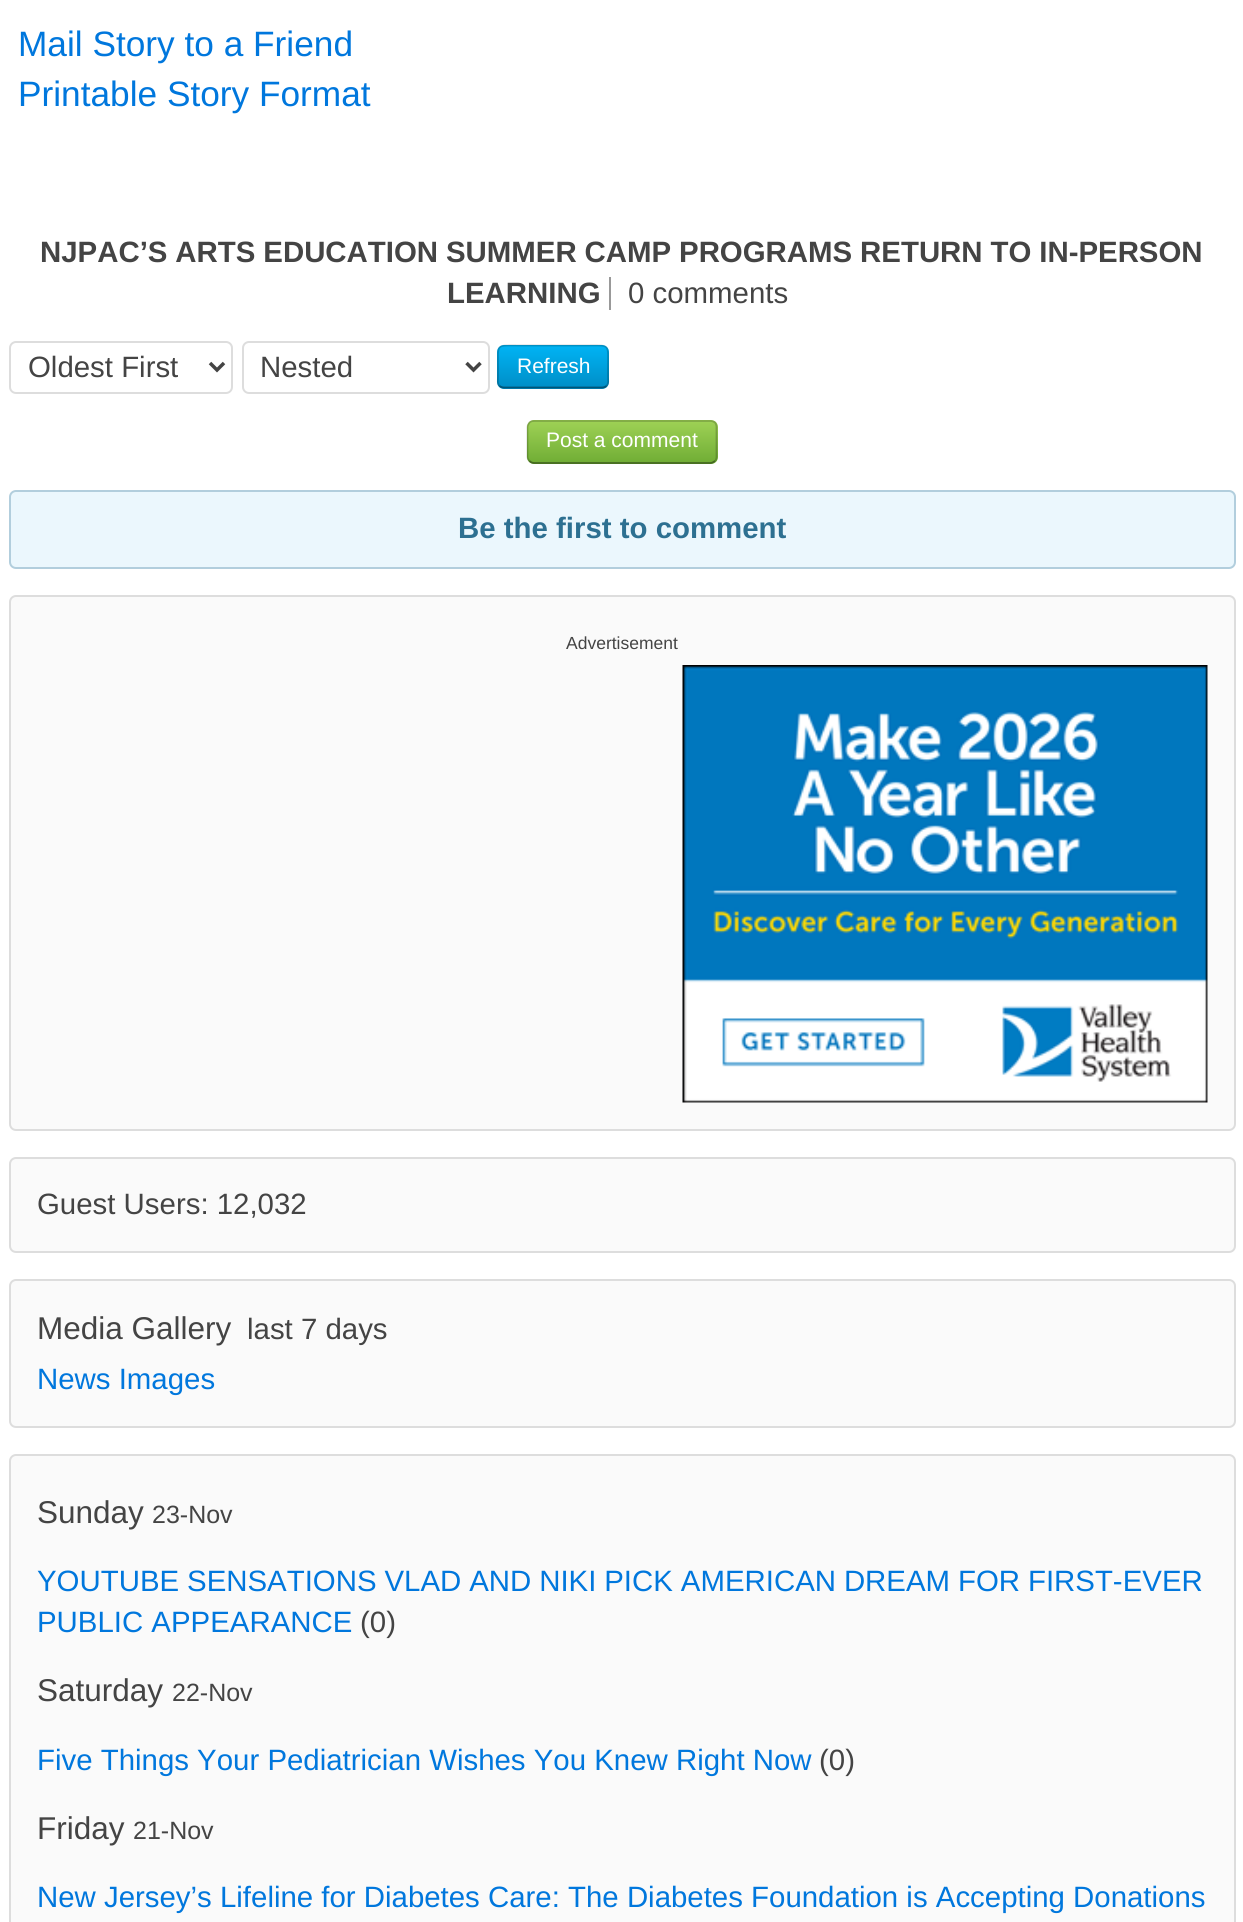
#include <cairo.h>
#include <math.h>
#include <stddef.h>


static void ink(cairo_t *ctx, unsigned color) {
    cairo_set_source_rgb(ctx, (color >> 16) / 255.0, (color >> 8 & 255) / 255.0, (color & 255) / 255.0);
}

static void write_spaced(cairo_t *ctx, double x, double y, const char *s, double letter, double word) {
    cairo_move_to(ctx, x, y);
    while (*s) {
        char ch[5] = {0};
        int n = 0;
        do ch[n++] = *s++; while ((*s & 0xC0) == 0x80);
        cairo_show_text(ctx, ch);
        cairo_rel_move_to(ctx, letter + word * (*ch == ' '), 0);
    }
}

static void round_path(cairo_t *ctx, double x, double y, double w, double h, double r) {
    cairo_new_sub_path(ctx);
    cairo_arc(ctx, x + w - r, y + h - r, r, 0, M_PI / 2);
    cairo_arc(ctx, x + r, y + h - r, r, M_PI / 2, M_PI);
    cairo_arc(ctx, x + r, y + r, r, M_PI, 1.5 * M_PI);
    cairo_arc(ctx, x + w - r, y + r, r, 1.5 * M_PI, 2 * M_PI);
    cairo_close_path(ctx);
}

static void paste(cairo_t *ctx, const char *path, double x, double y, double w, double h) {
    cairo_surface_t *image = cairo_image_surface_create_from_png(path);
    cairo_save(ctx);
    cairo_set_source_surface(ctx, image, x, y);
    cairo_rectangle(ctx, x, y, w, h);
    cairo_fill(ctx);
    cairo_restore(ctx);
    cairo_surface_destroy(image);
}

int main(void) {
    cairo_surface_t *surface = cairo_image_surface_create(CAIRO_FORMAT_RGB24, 1243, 1922);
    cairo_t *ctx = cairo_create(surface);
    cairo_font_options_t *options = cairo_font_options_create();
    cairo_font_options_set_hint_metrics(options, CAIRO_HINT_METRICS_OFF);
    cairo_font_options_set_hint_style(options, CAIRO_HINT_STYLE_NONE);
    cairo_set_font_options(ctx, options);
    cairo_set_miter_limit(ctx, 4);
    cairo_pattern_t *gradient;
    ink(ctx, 0xFFFFFF);
    cairo_paint(ctx);
    cairo_select_font_face(ctx, "Liberation Sans", CAIRO_FONT_SLANT_NORMAL, CAIRO_FONT_WEIGHT_NORMAL);
    cairo_set_font_size(ctx, 35.25);
    ink(ctx, 0x0077DD);
    cairo_move_to(ctx, 18, 56);
    cairo_show_text(ctx, "Mail Story to a Friend");
    cairo_move_to(ctx, 18, 106);
    cairo_show_text(ctx, "Printable Story Format");
    cairo_select_font_face(ctx, "Liberation Sans", CAIRO_FONT_SLANT_NORMAL, CAIRO_FONT_WEIGHT_BOLD);
    cairo_set_font_size(ctx, 29.4);
    ink(ctx, 0x444444);
    write_spaced(ctx, 40, 262, "NJPAC’S ARTS EDUCATION SUMMER CAMP PROGRAMS RETURN TO IN-PERSON", 0, -0.25);
    cairo_move_to(ctx, 447, 303);
    cairo_show_text(ctx, "LEARNING");
    ink(ctx, 0x999999);
    cairo_rectangle(ctx, 609, 277, 2, 33);
    cairo_fill(ctx);
    cairo_select_font_face(ctx, "Liberation Sans", CAIRO_FONT_SLANT_NORMAL, CAIRO_FONT_WEIGHT_NORMAL);
    ink(ctx, 0x444444);
    cairo_move_to(ctx, 628, 303);
    cairo_show_text(ctx, "0 comments");
    round_path(ctx, 10, 342, 222, 51, 6);
    ink(ctx, 0xDDDDDD);
    cairo_stroke(ctx);
    cairo_new_path(ctx);
    cairo_move_to(ctx, 210, 363);
    cairo_line_to(ctx, 217, 370);
    cairo_line_to(ctx, 224, 363);
    ink(ctx, 0x444444);
    cairo_set_line_width(ctx, 3.5);
    cairo_stroke(ctx);
    cairo_move_to(ctx, 28, 377);
    cairo_show_text(ctx, "Oldest First");
    round_path(ctx, 243, 342, 246, 51, 6);
    ink(ctx, 0xDDDDDD);
    cairo_set_line_width(ctx, 2);
    cairo_stroke(ctx);
    cairo_new_path(ctx);
    cairo_move_to(ctx, 466.5, 363);
    cairo_line_to(ctx, 473.5, 370);
    cairo_line_to(ctx, 480.5, 363);
    ink(ctx, 0x444444);
    cairo_set_line_width(ctx, 3.5);
    cairo_stroke(ctx);
    cairo_move_to(ctx, 260, 377);
    cairo_show_text(ctx, "Nested");
    gradient = cairo_pattern_create_linear(553, 345, 553, 389);
    cairo_pattern_add_color_stop_rgba(gradient, 0, 0, 0.706, 0.961, 1);
    cairo_pattern_add_color_stop_rgba(gradient, 1, 0, 0.553, 0.773, 1);
    cairo_set_source(ctx, gradient);
    cairo_pattern_destroy(gradient);
    round_path(ctx, 497, 345, 112, 44, 7);
    cairo_fill(ctx);
    cairo_new_path(ctx);
    cairo_move_to(ctx, 606.5, 386);
    cairo_curve_to(ctx, 605, 387, 603.5, 387.5, 602, 387.5);
    cairo_line_to(ctx, 504, 387.5);
    cairo_curve_to(ctx, 502.5, 387.5, 501, 387, 499.5, 386);
    ink(ctx, 0x005577);
    cairo_set_line_width(ctx, 1.8);
    cairo_stroke(ctx);
    cairo_new_path(ctx);
    cairo_move_to(ctx, 499.5, 386);
    cairo_curve_to(ctx, 497, 383.5, 498, 379.5, 498, 376.5);
    cairo_line_to(ctx, 498, 366.5);
    cairo_curve_to(ctx, 498, 343, 495.5, 345.5, 520.5, 345.5);
    cairo_line_to(ctx, 585.5, 345.5);
    cairo_curve_to(ctx, 610.5, 345.5, 608, 343, 608, 366.5);
    cairo_line_to(ctx, 608, 376.5);
    cairo_curve_to(ctx, 608, 379.5, 609, 383.5, 606.5, 386);
    cairo_set_source_rgba(ctx, 0, 0, 0, 0.2);
    cairo_stroke(ctx);
    cairo_set_font_size(ctx, 21);
    ink(ctx, 0xFFFFFF);
    cairo_move_to(ctx, 517, 373);
    cairo_show_text(ctx, "Refresh");
    gradient = cairo_pattern_create_linear(622, 420, 622, 464);
    cairo_pattern_add_color_stop_rgba(gradient, 0, 0.624, 0.824, 0.337, 1);
    cairo_pattern_add_color_stop_rgba(gradient, 1, 0.435, 0.675, 0.204, 1);
    cairo_set_source(ctx, gradient);
    cairo_pattern_destroy(gradient);
    round_path(ctx, 527, 420, 191, 44, 7);
    cairo_fill(ctx);
    cairo_new_path(ctx);
    cairo_move_to(ctx, 715, 461);
    cairo_curve_to(ctx, 713.5, 462, 712, 463, 710.5, 463);
    cairo_line_to(ctx, 534, 463);
    cairo_curve_to(ctx, 532, 463, 530.5, 462, 529.5, 461);
    cairo_set_source_rgba(ctx, 0, 0, 0, 0.4);
    cairo_stroke(ctx);
    cairo_new_path(ctx);
    cairo_move_to(ctx, 529.5, 461);
    cairo_curve_to(ctx, 528.5, 460, 527.5, 458.5, 527.5, 457);
    cairo_line_to(ctx, 527.5, 427);
    cairo_curve_to(ctx, 527.5, 425.5, 528.5, 424, 529.5, 422.5);
    cairo_curve_to(ctx, 530.5, 421.5, 532, 421, 534, 421);
    cairo_line_to(ctx, 710.5, 421);
    cairo_curve_to(ctx, 712, 421, 713.5, 421.5, 715, 422.5);
    cairo_curve_to(ctx, 716, 424, 716.5, 425.5, 716.5, 427);
    cairo_line_to(ctx, 716.5, 457);
    cairo_curve_to(ctx, 716.5, 458.5, 716, 460, 715, 461);
    cairo_set_source_rgba(ctx, 0, 0, 0, 0.2);
    cairo_stroke(ctx);
    ink(ctx, 0xFFFFFF);
    cairo_move_to(ctx, 546, 447);
    cairo_show_text(ctx, "Post a comment");
    ink(ctx, 0xEBF7FD);
    round_path(ctx, 9, 490, 1227, 79, 7);
    cairo_fill(ctx);
    round_path(ctx, 10, 491, 1225, 77, 6);
    cairo_set_source_rgba(ctx, 0.176, 0.439, 0.569, 0.3);
    cairo_set_line_width(ctx, 2);
    cairo_stroke(ctx);
    cairo_select_font_face(ctx, "Liberation Sans", CAIRO_FONT_SLANT_NORMAL, CAIRO_FONT_WEIGHT_BOLD);
    cairo_set_font_size(ctx, 29.4);
    ink(ctx, 0x2D7091);
    cairo_move_to(ctx, 458, 538);
    cairo_show_text(ctx, "Be the first to comment");
    ink(ctx, 0xFAFAFA);
    round_path(ctx, 10, 596, 1225, 534, 6);
    cairo_fill_preserve(ctx);
    ink(ctx, 0xDDDDDD);
    cairo_stroke(ctx);
    cairo_select_font_face(ctx, "Liberation Sans", CAIRO_FONT_SLANT_NORMAL, CAIRO_FONT_WEIGHT_NORMAL);
    cairo_set_font_size(ctx, 17.5);
    ink(ctx, 0x444444);
    cairo_move_to(ctx, 566, 649);
    cairo_show_text(ctx, "Advertisement");
    paste(ctx, "media/1.png", 682, 665, 526, 438);
    ink(ctx, 0xFAFAFA);
    round_path(ctx, 10, 1158, 1225, 94, 6);
    cairo_fill_preserve(ctx);
    ink(ctx, 0xDDDDDD);
    cairo_stroke(ctx);
    cairo_set_font_size(ctx, 29.4);
    ink(ctx, 0x444444);
    cairo_move_to(ctx, 37, 1214);
    cairo_show_text(ctx, "Guest Users: 12,032");
    ink(ctx, 0xFAFAFA);
    round_path(ctx, 10, 1280, 1225, 147, 6);
    cairo_fill_preserve(ctx);
    ink(ctx, 0xDDDDDD);
    cairo_stroke(ctx);
    cairo_set_font_size(ctx, 31.5);
    ink(ctx, 0x444444);
    cairo_move_to(ctx, 37, 1339);
    cairo_show_text(ctx, "Media Gallery");
    cairo_set_font_size(ctx, 29.4);
    cairo_move_to(ctx, 247, 1339);
    cairo_show_text(ctx, "last 7 days");
    ink(ctx, 0x0077DD);
    cairo_move_to(ctx, 37, 1389);
    cairo_show_text(ctx, "News Images");
    ink(ctx, 0xFAFAFA);
    round_path(ctx, 10, 1455, 1225, 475, 6);
    cairo_fill_preserve(ctx);
    ink(ctx, 0xDDDDDD);
    cairo_stroke(ctx);
    cairo_set_font_size(ctx, 31.5);
    ink(ctx, 0x444444);
    cairo_move_to(ctx, 37, 1523);
    cairo_show_text(ctx, "Sunday");
    cairo_set_font_size(ctx, 25);
    cairo_move_to(ctx, 152, 1523);
    cairo_show_text(ctx, "23-Nov");
    cairo_set_font_size(ctx, 29.4);
    ink(ctx, 0x0077DD);
    write_spaced(ctx, 37, 1591, "YOUTUBE SENSATIONS VLAD AND NIKI PICK AMERICAN DREAM FOR FIRST-EVER", 0, -0.25);
    cairo_move_to(ctx, 37, 1632);
    cairo_show_text(ctx, "PUBLIC APPEARANCE");
    ink(ctx, 0x444444);
    cairo_move_to(ctx, 360, 1632);
    cairo_show_text(ctx, "(0)");
    cairo_set_font_size(ctx, 31.5);
    cairo_move_to(ctx, 37, 1701);
    cairo_show_text(ctx, "Saturday");
    cairo_set_font_size(ctx, 25);
    cairo_move_to(ctx, 172, 1701);
    cairo_show_text(ctx, "22-Nov");
    cairo_set_font_size(ctx, 29.4);
    ink(ctx, 0x0077DD);
    cairo_move_to(ctx, 37, 1770);
    cairo_show_text(ctx, "Five Things Your Pediatrician Wishes You Knew Right Now");
    ink(ctx, 0x444444);
    cairo_move_to(ctx, 819, 1770);
    cairo_show_text(ctx, "(0)");
    cairo_set_font_size(ctx, 31.5);
    cairo_move_to(ctx, 37, 1839);
    cairo_show_text(ctx, "Friday");
    cairo_set_font_size(ctx, 25);
    cairo_move_to(ctx, 133, 1839);
    cairo_show_text(ctx, "21-Nov");
    cairo_set_font_size(ctx, 29.4);
    ink(ctx, 0x0077DD);
    cairo_move_to(ctx, 37, 1907);
    cairo_show_text(ctx, "New Jersey’s Lifeline for Diabetes Care: The Diabetes Foundation is Accepting Donations");
    cairo_surface_write_to_png(surface, "image.png");
    cairo_font_options_destroy(options);
    cairo_destroy(ctx);
    cairo_surface_destroy(surface);
    return 0;
}
